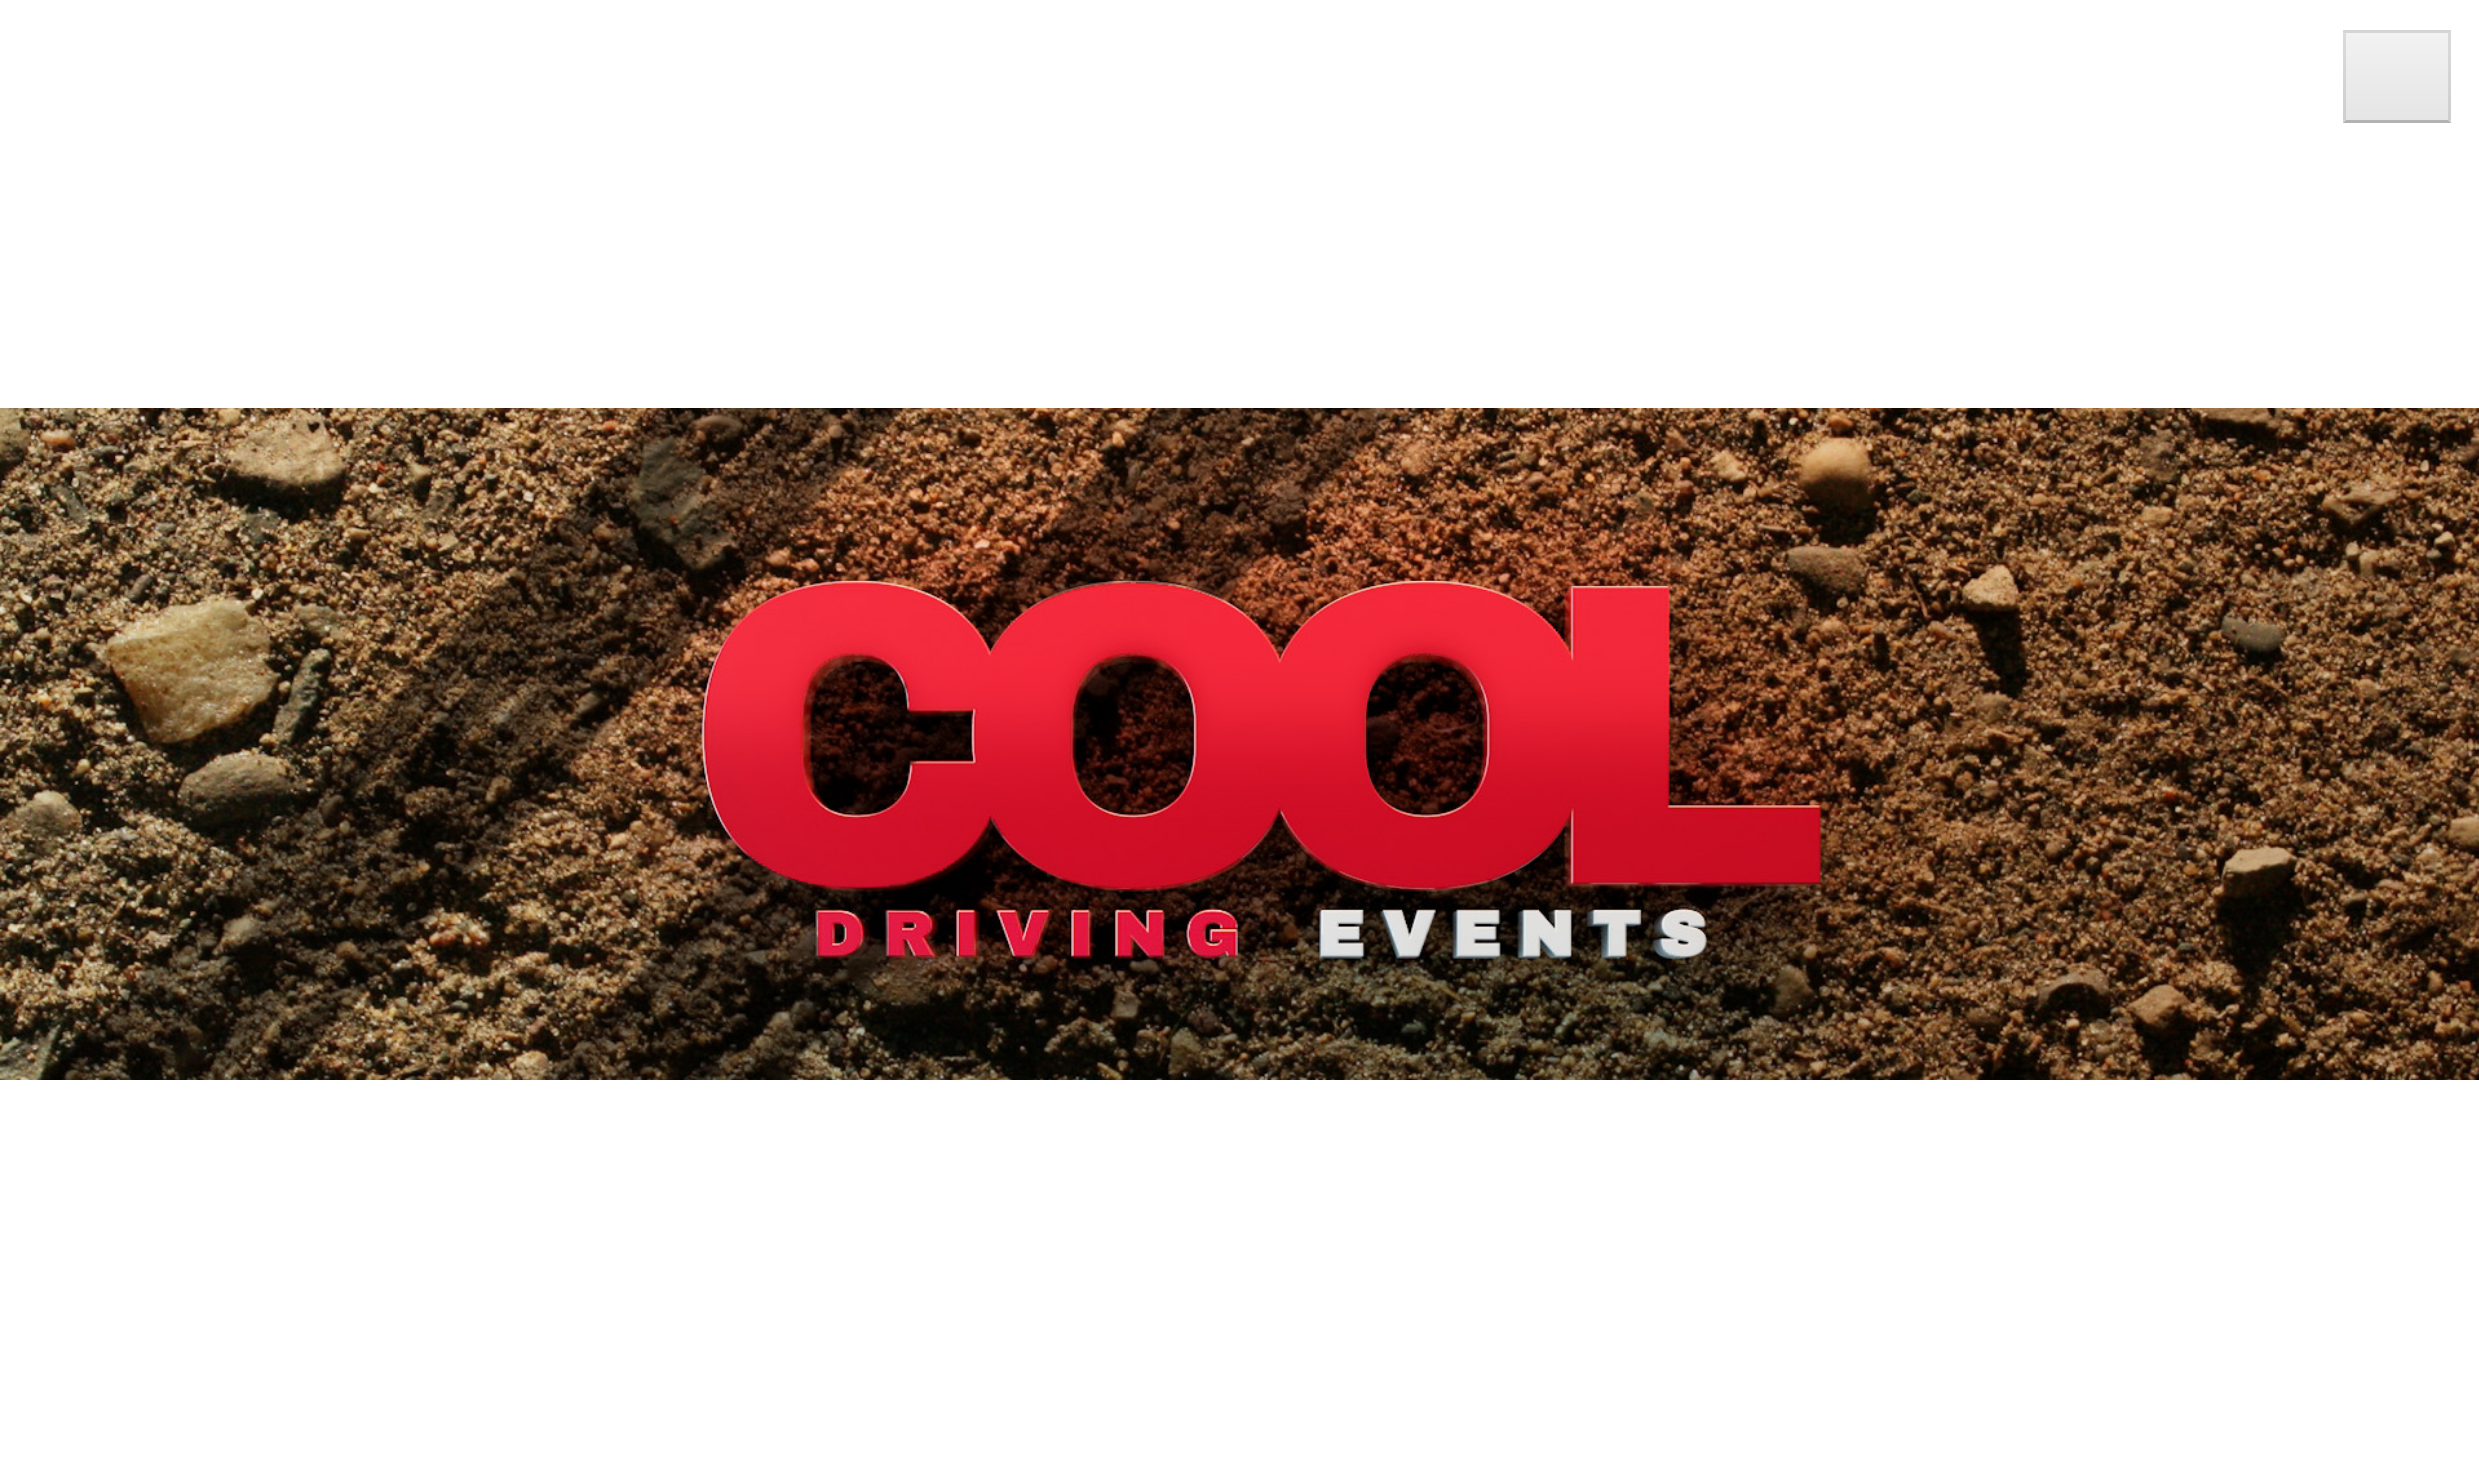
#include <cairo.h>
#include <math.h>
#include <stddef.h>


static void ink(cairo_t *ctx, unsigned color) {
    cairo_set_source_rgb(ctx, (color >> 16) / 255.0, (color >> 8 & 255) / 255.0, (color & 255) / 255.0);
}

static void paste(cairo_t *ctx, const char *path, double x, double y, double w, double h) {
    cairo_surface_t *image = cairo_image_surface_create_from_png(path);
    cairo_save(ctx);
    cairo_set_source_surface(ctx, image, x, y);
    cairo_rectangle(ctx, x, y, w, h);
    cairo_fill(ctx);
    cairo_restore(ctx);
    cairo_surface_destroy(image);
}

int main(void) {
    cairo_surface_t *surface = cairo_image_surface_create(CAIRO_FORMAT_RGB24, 2479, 1472);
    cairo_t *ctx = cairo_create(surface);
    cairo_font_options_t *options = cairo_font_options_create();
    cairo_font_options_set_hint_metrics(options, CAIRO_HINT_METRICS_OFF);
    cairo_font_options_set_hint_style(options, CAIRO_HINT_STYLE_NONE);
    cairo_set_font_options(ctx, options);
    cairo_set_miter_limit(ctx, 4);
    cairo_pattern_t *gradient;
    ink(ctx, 0xFFFFFF);
    cairo_paint(ctx);
    ink(ctx, 0xEDEDED);
    cairo_rectangle(ctx, 2343, 30, 108, 93);
    cairo_fill(ctx);
    gradient = cairo_pattern_create_linear(2397, 33, 2397, 120);
    cairo_pattern_add_color_stop_rgba(gradient, 0, 0.949, 0.949, 0.949, 1);
    cairo_pattern_add_color_stop_rgba(gradient, 1, 0.898, 0.898, 0.898, 1);
    cairo_set_source(ctx, gradient);
    cairo_pattern_destroy(gradient);
    cairo_rectangle(ctx, 2343, 33, 108, 87);
    cairo_fill(ctx);
    ink(ctx, 0xD5D5D5);
    cairo_new_path(ctx);
    cairo_move_to(ctx, 2343, 30);
    cairo_line_to(ctx, 2451, 30);
    cairo_line_to(ctx, 2448, 33);
    cairo_line_to(ctx, 2346, 33);
    cairo_close_path(ctx);
    cairo_fill(ctx);
    cairo_set_source_rgba(ctx, 0, 0, 0, 0.1);
    cairo_new_path(ctx);
    cairo_move_to(ctx, 2451, 30);
    cairo_line_to(ctx, 2451, 123);
    cairo_line_to(ctx, 2448, 120);
    cairo_line_to(ctx, 2448, 33);
    cairo_close_path(ctx);
    cairo_fill(ctx);
    cairo_set_source_rgba(ctx, 0, 0, 0, 0.25);
    cairo_new_path(ctx);
    cairo_move_to(ctx, 2451, 123);
    cairo_line_to(ctx, 2343, 123);
    cairo_line_to(ctx, 2346, 120);
    cairo_line_to(ctx, 2448, 120);
    cairo_close_path(ctx);
    cairo_fill(ctx);
    cairo_set_source_rgba(ctx, 0, 0, 0, 0.1);
    cairo_new_path(ctx);
    cairo_move_to(ctx, 2343, 123);
    cairo_line_to(ctx, 2343, 30);
    cairo_line_to(ctx, 2346, 33);
    cairo_line_to(ctx, 2346, 120);
    cairo_close_path(ctx);
    cairo_fill(ctx);
    paste(ctx, "media/1.png", 0, 408, 2479, 672);
    cairo_surface_write_to_png(surface, "image.png");
    cairo_font_options_destroy(options);
    cairo_destroy(ctx);
    cairo_surface_destroy(surface);
    return 0;
}
